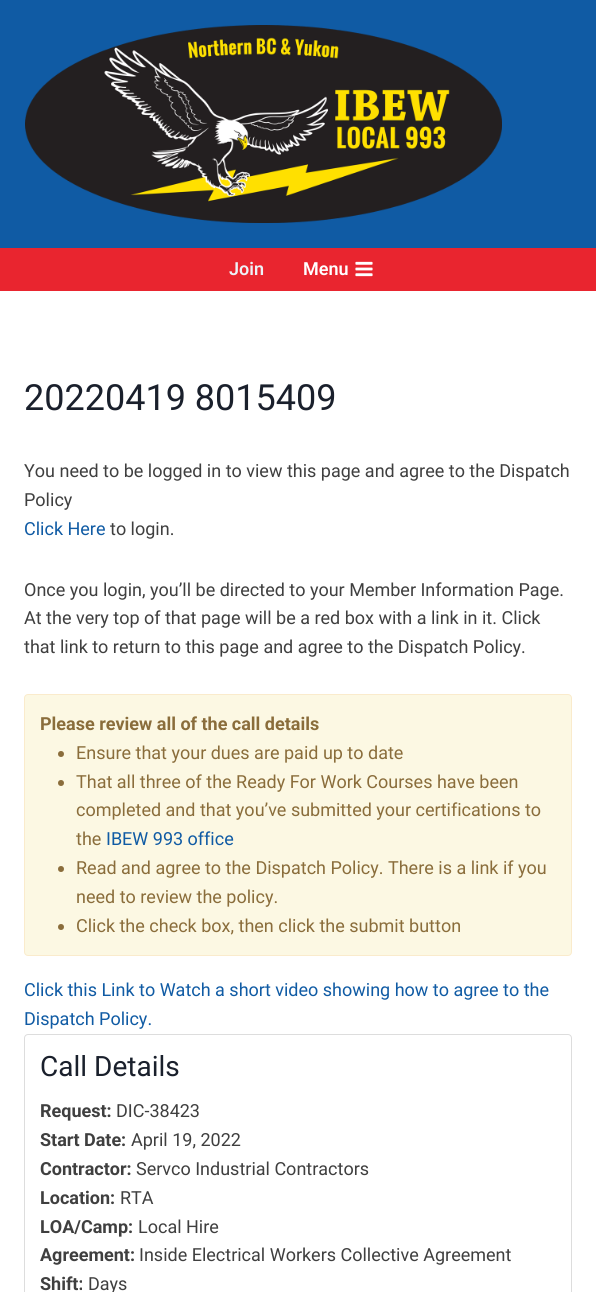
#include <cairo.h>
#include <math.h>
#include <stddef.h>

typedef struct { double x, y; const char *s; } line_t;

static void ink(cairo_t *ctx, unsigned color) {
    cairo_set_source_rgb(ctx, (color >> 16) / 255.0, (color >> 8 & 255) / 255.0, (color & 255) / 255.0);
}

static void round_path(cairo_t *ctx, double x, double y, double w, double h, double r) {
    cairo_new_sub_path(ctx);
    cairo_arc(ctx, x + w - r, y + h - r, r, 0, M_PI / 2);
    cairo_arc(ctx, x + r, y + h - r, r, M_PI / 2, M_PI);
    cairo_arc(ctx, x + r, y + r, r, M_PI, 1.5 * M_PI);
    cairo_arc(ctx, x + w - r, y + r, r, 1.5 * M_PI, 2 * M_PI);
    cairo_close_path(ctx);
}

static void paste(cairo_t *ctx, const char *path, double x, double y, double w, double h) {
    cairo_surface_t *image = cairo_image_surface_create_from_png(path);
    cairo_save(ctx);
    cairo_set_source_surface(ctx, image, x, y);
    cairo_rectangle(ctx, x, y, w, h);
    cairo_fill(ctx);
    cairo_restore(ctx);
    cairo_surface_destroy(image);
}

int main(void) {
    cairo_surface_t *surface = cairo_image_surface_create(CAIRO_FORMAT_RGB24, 596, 1292);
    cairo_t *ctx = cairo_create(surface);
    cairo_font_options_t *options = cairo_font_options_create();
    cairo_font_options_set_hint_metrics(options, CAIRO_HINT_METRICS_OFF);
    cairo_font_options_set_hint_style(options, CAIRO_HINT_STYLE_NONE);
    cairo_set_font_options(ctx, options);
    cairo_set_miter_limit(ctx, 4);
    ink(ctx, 0xFFFFFF);
    cairo_paint(ctx);
    ink(ctx, 0x105BA4);
    cairo_rectangle(ctx, 0, 0, 596, 248);
    cairo_fill(ctx);
    paste(ctx, "media/1.png", 25, 25, 477, 198);
    ink(ctx, 0xE9252F);
    cairo_rectangle(ctx, 0, 248, 596, 43);
    cairo_fill(ctx);
    cairo_select_font_face(ctx, "Roboto SemiBold", CAIRO_FONT_SLANT_NORMAL, CAIRO_FONT_WEIGHT_NORMAL);
    cairo_set_font_size(ctx, 18);
    ink(ctx, 0xEDF2F7);
    cairo_move_to(ctx, 229, 275);
    cairo_show_text(ctx, "Join");
    ink(ctx, 0xFFFFFF);
    cairo_move_to(ctx, 303, 275);
    cairo_show_text(ctx, "Menu");
    paste(ctx, "media/2.png", 355, 261, 18, 16);
    cairo_select_font_face(ctx, "Roboto", CAIRO_FONT_SLANT_NORMAL, CAIRO_FONT_WEIGHT_NORMAL);
    cairo_set_font_size(ctx, 36);
    ink(ctx, 0x1A202C);
    cairo_move_to(ctx, 24, 410);
    cairo_show_text(ctx, "20220419 8015409");
    cairo_set_font_size(ctx, 18);
    ink(ctx, 0x3F3F3F);
    cairo_move_to(ctx, 24, 477);
    cairo_show_text(ctx, "You need to be logged in to view this page and agree to the Dispatch");
    cairo_move_to(ctx, 24, 506);
    cairo_show_text(ctx, "Policy");
    ink(ctx, 0x105BA4);
    cairo_move_to(ctx, 24, 535);
    cairo_show_text(ctx, "Click Here");
    ink(ctx, 0x3F3F3F);
    {
        static const line_t items[] = {
            {110, 535, "to login."},
            {24, 596, "Once you login, you’ll be directed to your Member Information Page."},
            {24, 624, "At the very top of that page will be a red box with a link in it. Click"},
            {24, 653, "that link to return to this page and agree to the Dispatch Policy."},
        };
        for (size_t i = 0; i < sizeof items / sizeof *items; i++) {
            cairo_move_to(ctx, items[i].x, items[i].y);
            cairo_show_text(ctx, items[i].s);
        }
    }
    ink(ctx, 0xFCF8E3);
    round_path(ctx, 24.5, 694.5, 547, 261, 3.5);
    cairo_fill_preserve(ctx);
    ink(ctx, 0xFAEBCC);
    cairo_set_line_width(ctx, 1);
    cairo_stroke(ctx);
    cairo_select_font_face(ctx, "Roboto", CAIRO_FONT_SLANT_NORMAL, CAIRO_FONT_WEIGHT_BOLD);
    ink(ctx, 0x8A6D3B);
    cairo_move_to(ctx, 40, 730);
    cairo_show_text(ctx, "Please review all of the call details");
    cairo_new_path(ctx);
    cairo_arc(ctx, 61, 754, 3, 0, 2 * M_PI);
    cairo_fill(ctx);
    cairo_select_font_face(ctx, "Roboto", CAIRO_FONT_SLANT_NORMAL, CAIRO_FONT_WEIGHT_NORMAL);
    cairo_move_to(ctx, 76, 759);
    cairo_show_text(ctx, "Ensure that your dues are paid up to date");
    cairo_new_path(ctx);
    cairo_arc(ctx, 61, 783, 3, 0, 2 * M_PI);
    cairo_fill(ctx);
    {
        static const line_t items[] = {
            {76, 788, "That all three of the Ready For Work Courses have been"},
            {76, 816, "completed and that you’ve submitted your certifications to"},
            {76, 845, "the"},
        };
        for (size_t i = 0; i < sizeof items / sizeof *items; i++) {
            cairo_move_to(ctx, items[i].x, items[i].y);
            cairo_show_text(ctx, items[i].s);
        }
    }
    ink(ctx, 0x105BA4);
    cairo_move_to(ctx, 106, 845);
    cairo_show_text(ctx, "IBEW 993 office");
    ink(ctx, 0x8A6D3B);
    cairo_new_path(ctx);
    cairo_arc(ctx, 61, 869, 3, 0, 2 * M_PI);
    cairo_fill(ctx);
    cairo_move_to(ctx, 76, 874);
    cairo_show_text(ctx, "Read and agree to the Dispatch Policy. There is a link if you");
    cairo_move_to(ctx, 76, 903);
    cairo_show_text(ctx, "need to review the policy.");
    cairo_new_path(ctx);
    cairo_arc(ctx, 61, 927, 3, 0, 2 * M_PI);
    cairo_fill(ctx);
    cairo_move_to(ctx, 76, 932);
    cairo_show_text(ctx, "Click the check box, then click the submit button");
    ink(ctx, 0x105BA4);
    cairo_move_to(ctx, 24, 996);
    cairo_show_text(ctx, "Click this Link to Watch a short video showing how to agree to the");
    cairo_move_to(ctx, 24, 1025);
    cairo_show_text(ctx, "Dispatch Policy.");
    round_path(ctx, 24.5, 1034.5, 547, 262, 3.5);
    ink(ctx, 0xDDDDDD);
    cairo_stroke(ctx);
    cairo_set_font_size(ctx, 28);
    ink(ctx, 0x1A202C);
    cairo_move_to(ctx, 40, 1076);
    cairo_show_text(ctx, "Call Details");
    cairo_select_font_face(ctx, "Roboto", CAIRO_FONT_SLANT_NORMAL, CAIRO_FONT_WEIGHT_BOLD);
    cairo_set_font_size(ctx, 18);
    ink(ctx, 0x3F3F3F);
    cairo_move_to(ctx, 40, 1117);
    cairo_show_text(ctx, "Request:");
    cairo_select_font_face(ctx, "Roboto", CAIRO_FONT_SLANT_NORMAL, CAIRO_FONT_WEIGHT_NORMAL);
    cairo_move_to(ctx, 116, 1117);
    cairo_show_text(ctx, "DIC-38423");
    cairo_select_font_face(ctx, "Roboto", CAIRO_FONT_SLANT_NORMAL, CAIRO_FONT_WEIGHT_BOLD);
    cairo_move_to(ctx, 40, 1146);
    cairo_show_text(ctx, "Start Date:");
    cairo_select_font_face(ctx, "Roboto", CAIRO_FONT_SLANT_NORMAL, CAIRO_FONT_WEIGHT_NORMAL);
    cairo_move_to(ctx, 131, 1146);
    cairo_show_text(ctx, "April 19, 2022");
    cairo_select_font_face(ctx, "Roboto", CAIRO_FONT_SLANT_NORMAL, CAIRO_FONT_WEIGHT_BOLD);
    cairo_move_to(ctx, 40, 1175);
    cairo_show_text(ctx, "Contractor:");
    cairo_select_font_face(ctx, "Roboto", CAIRO_FONT_SLANT_NORMAL, CAIRO_FONT_WEIGHT_NORMAL);
    cairo_move_to(ctx, 136, 1175);
    cairo_show_text(ctx, "Servco Industrial Contractors");
    cairo_select_font_face(ctx, "Roboto", CAIRO_FONT_SLANT_NORMAL, CAIRO_FONT_WEIGHT_BOLD);
    cairo_move_to(ctx, 40, 1204);
    cairo_show_text(ctx, "Location:");
    cairo_select_font_face(ctx, "Roboto", CAIRO_FONT_SLANT_NORMAL, CAIRO_FONT_WEIGHT_NORMAL);
    cairo_move_to(ctx, 120, 1204);
    cairo_show_text(ctx, "RTA");
    cairo_select_font_face(ctx, "Roboto", CAIRO_FONT_SLANT_NORMAL, CAIRO_FONT_WEIGHT_BOLD);
    cairo_move_to(ctx, 40, 1233);
    cairo_show_text(ctx, "LOA/Camp:");
    cairo_select_font_face(ctx, "Roboto", CAIRO_FONT_SLANT_NORMAL, CAIRO_FONT_WEIGHT_NORMAL);
    cairo_move_to(ctx, 138, 1233);
    cairo_show_text(ctx, "Local Hire");
    cairo_select_font_face(ctx, "Roboto", CAIRO_FONT_SLANT_NORMAL, CAIRO_FONT_WEIGHT_BOLD);
    cairo_move_to(ctx, 40, 1261);
    cairo_show_text(ctx, "Agreement:");
    cairo_select_font_face(ctx, "Roboto", CAIRO_FONT_SLANT_NORMAL, CAIRO_FONT_WEIGHT_NORMAL);
    cairo_move_to(ctx, 139, 1261);
    cairo_show_text(ctx, "Inside Electrical Workers Collective Agreement");
    cairo_select_font_face(ctx, "Roboto", CAIRO_FONT_SLANT_NORMAL, CAIRO_FONT_WEIGHT_BOLD);
    cairo_move_to(ctx, 40, 1290);
    cairo_show_text(ctx, "Shift:");
    cairo_select_font_face(ctx, "Roboto", CAIRO_FONT_SLANT_NORMAL, CAIRO_FONT_WEIGHT_NORMAL);
    cairo_move_to(ctx, 88, 1290);
    cairo_show_text(ctx, "Days");
    cairo_surface_write_to_png(surface, "image.png");
    cairo_font_options_destroy(options);
    cairo_destroy(ctx);
    cairo_surface_destroy(surface);
    return 0;
}
